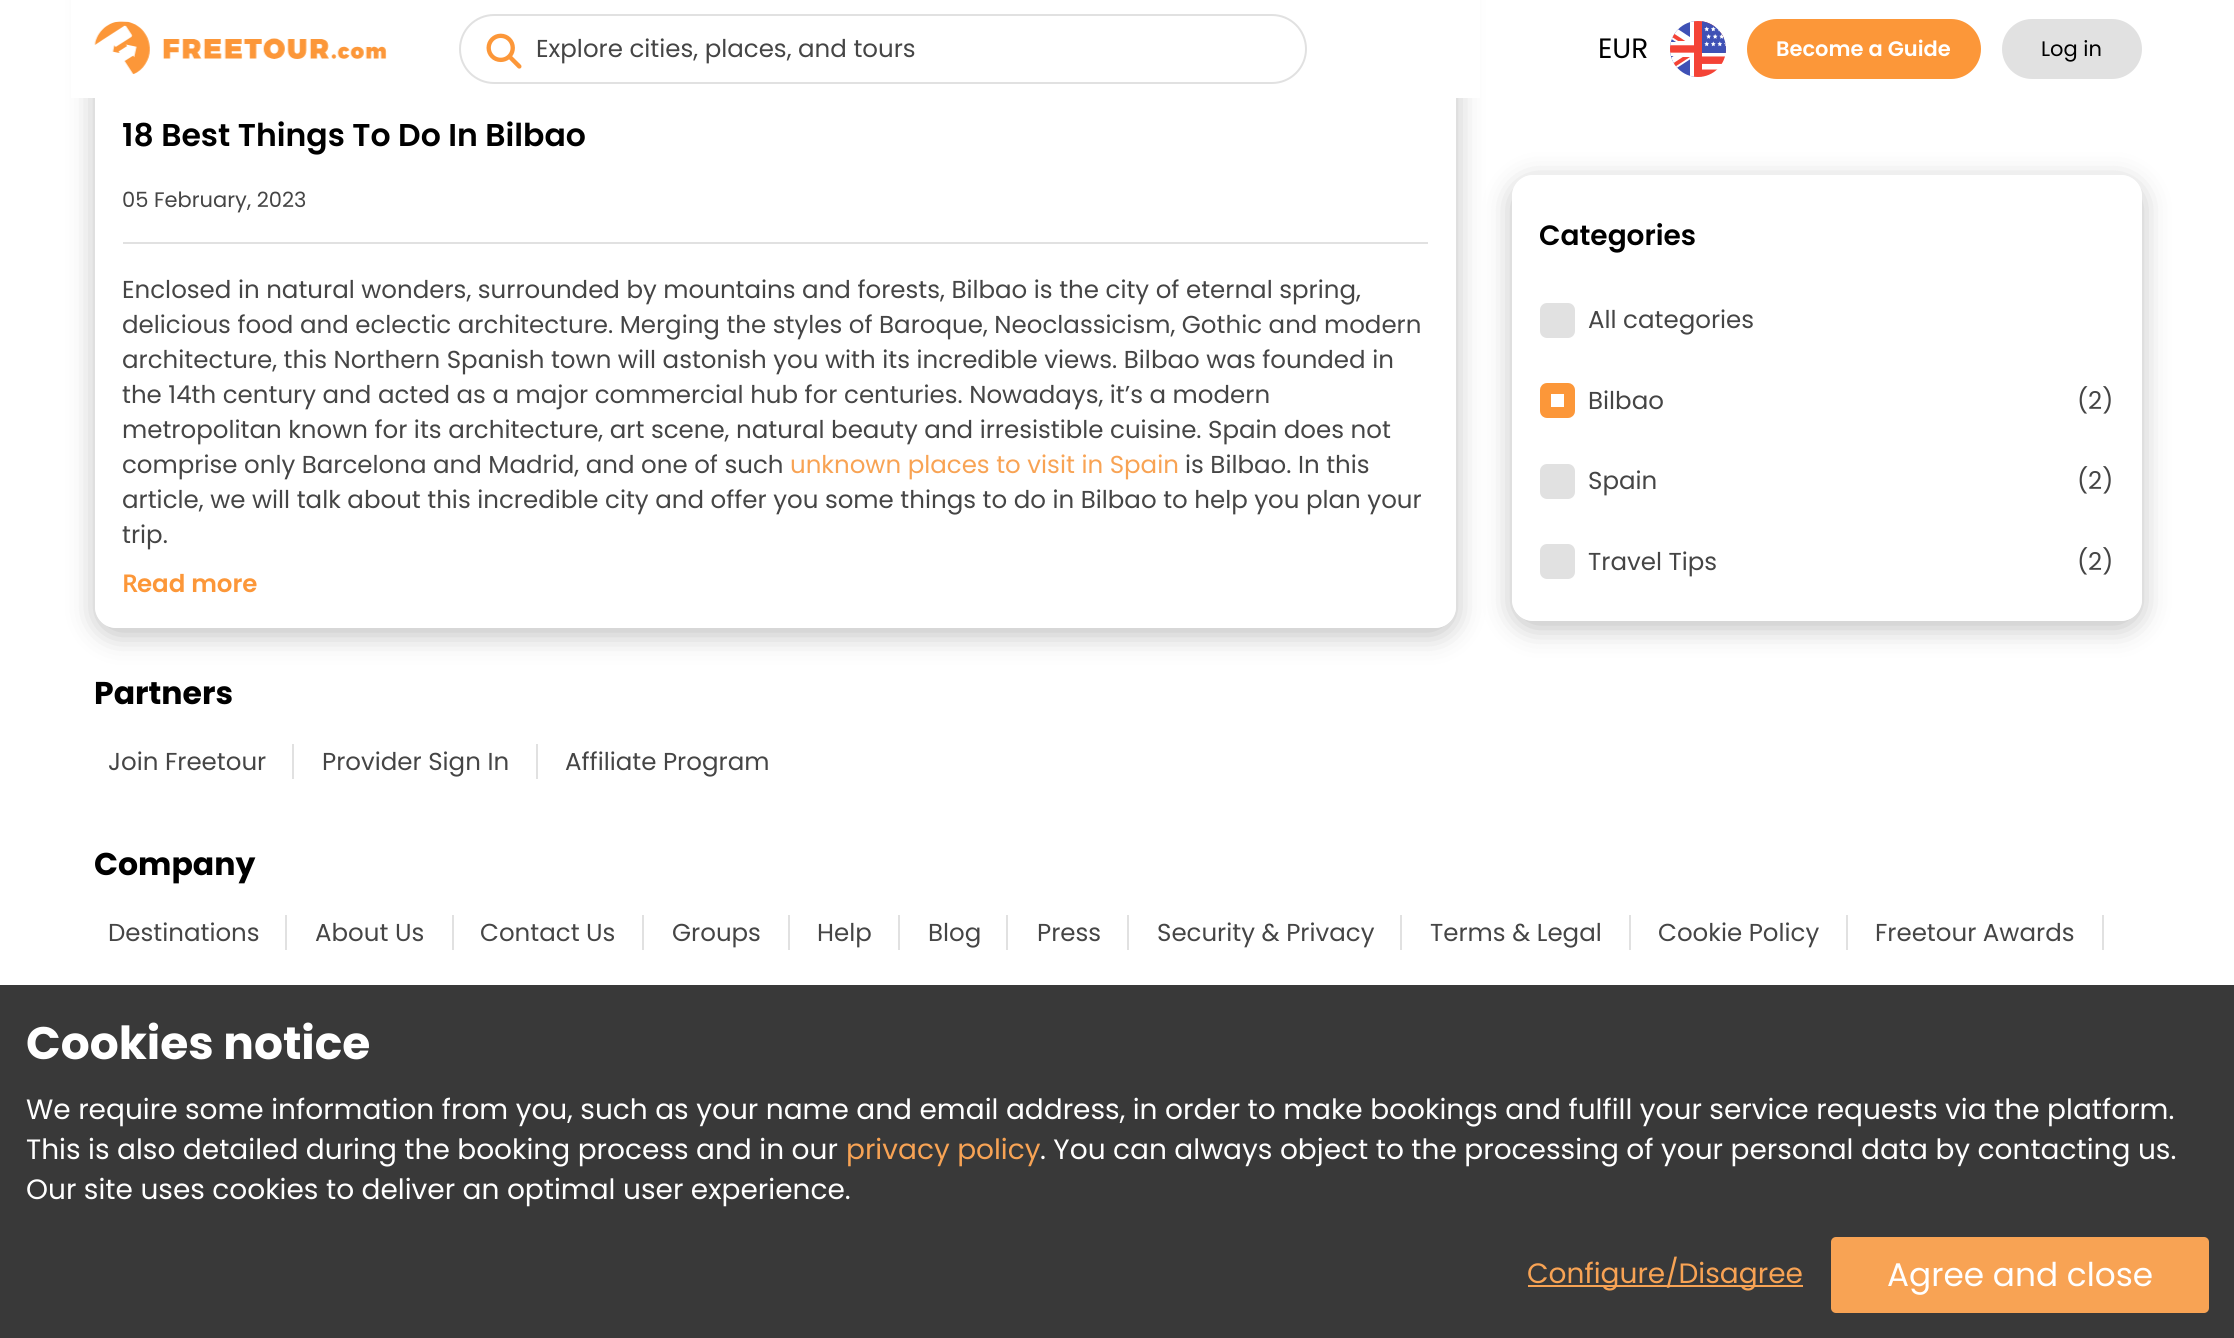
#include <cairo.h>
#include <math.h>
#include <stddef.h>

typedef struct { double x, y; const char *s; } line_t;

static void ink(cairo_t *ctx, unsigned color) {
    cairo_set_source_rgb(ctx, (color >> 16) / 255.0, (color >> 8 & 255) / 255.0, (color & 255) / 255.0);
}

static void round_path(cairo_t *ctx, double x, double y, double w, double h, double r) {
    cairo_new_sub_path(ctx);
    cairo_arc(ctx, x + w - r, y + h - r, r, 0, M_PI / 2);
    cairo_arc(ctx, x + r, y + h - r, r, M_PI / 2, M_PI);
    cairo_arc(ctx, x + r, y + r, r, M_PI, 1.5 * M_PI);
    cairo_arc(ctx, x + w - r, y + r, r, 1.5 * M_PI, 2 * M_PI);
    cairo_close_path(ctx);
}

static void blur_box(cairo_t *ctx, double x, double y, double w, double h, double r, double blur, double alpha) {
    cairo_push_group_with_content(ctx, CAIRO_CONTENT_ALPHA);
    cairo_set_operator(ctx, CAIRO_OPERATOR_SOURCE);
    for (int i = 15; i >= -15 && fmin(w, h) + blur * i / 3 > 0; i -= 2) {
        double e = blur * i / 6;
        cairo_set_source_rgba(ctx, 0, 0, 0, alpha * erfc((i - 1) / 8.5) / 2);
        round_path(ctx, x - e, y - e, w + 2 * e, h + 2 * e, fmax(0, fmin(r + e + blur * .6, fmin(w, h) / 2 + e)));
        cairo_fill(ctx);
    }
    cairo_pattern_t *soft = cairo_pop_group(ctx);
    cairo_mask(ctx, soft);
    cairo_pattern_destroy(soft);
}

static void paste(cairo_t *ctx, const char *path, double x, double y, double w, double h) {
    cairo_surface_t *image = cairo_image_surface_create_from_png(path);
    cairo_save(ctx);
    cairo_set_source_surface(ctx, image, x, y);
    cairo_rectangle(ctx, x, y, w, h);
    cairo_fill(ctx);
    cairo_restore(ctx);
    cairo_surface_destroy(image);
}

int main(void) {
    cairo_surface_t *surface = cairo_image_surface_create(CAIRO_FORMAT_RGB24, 2234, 1338);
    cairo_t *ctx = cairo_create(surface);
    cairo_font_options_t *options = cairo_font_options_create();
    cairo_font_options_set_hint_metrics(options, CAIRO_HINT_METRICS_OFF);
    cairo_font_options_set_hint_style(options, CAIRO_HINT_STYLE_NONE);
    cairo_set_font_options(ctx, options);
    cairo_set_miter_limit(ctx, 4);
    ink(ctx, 0xFFFFFF);
    cairo_paint(ctx);
    cairo_save(ctx);
    cairo_set_fill_rule(ctx, CAIRO_FILL_RULE_EVEN_ODD);
    cairo_new_path(ctx);
    cairo_move_to(ctx, 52, 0);
    cairo_line_to(ctx, 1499, 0);
    cairo_line_to(ctx, 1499, 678);
    cairo_line_to(ctx, 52, 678);
    cairo_close_path(ctx);
    cairo_move_to(ctx, 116, -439);
    cairo_line_to(ctx, 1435, -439);
    cairo_curve_to(ctx, 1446.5, -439, 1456, -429.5, 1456, -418);
    cairo_line_to(ctx, 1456, 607);
    cairo_curve_to(ctx, 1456, 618.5, 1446.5, 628, 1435, 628);
    cairo_line_to(ctx, 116, 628);
    cairo_curve_to(ctx, 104.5, 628, 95, 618.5, 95, 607);
    cairo_line_to(ctx, 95, -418);
    cairo_curve_to(ctx, 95, -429.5, 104.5, -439, 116, -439);
    cairo_close_path(ctx);
    cairo_clip(ctx);
    ink(ctx, 0x000000);
    blur_box(ctx, 95, -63, 1361, 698, 21, 14, 0.25);
    cairo_restore(ctx);
    ink(ctx, 0xFFFFFF);
    cairo_rectangle(ctx, 71, 0, 1409, 98);
    cairo_fill(ctx);
    paste(ctx, "media/1.png", 94, 21, 293, 54);
    round_path(ctx, 460, 15, 846, 68, 34);
    ink(ctx, 0xE1E1E1);
    cairo_stroke(ctx);
    paste(ctx, "media/2.png", 486, 33, 36, 36);
    cairo_select_font_face(ctx, "Poppins", CAIRO_FONT_SLANT_NORMAL, CAIRO_FONT_WEIGHT_NORMAL);
    cairo_set_font_size(ctx, 24.5);
    ink(ctx, 0x454545);
    cairo_move_to(ctx, 536, 57);
    cairo_show_text(ctx, "Explore cities, places, and tours");
    cairo_set_font_size(ctx, 28);
    ink(ctx, 0x000000);
    cairo_move_to(ctx, 1598, 58);
    cairo_show_text(ctx, "EUR");
    paste(ctx, "media/3.png", 1670, 21, 56, 56);
    ink(ctx, 0xFC9739);
    round_path(ctx, 1748, 20, 232, 58, 29);
    cairo_fill_preserve(ctx);
    cairo_stroke(ctx);
    cairo_select_font_face(ctx, "Poppins SemiBold", CAIRO_FONT_SLANT_NORMAL, CAIRO_FONT_WEIGHT_NORMAL);
    cairo_set_font_size(ctx, 21);
    ink(ctx, 0xFFFFFF);
    cairo_move_to(ctx, 1776, 56);
    cairo_show_text(ctx, "Become a Guide");
    ink(ctx, 0xE1E1E1);
    round_path(ctx, 2003, 20, 138, 58, 29);
    cairo_fill_preserve(ctx);
    cairo_stroke(ctx);
    cairo_select_font_face(ctx, "Poppins", CAIRO_FONT_SLANT_NORMAL, CAIRO_FONT_WEIGHT_NORMAL);
    ink(ctx, 0x000000);
    cairo_move_to(ctx, 2041, 56);
    cairo_show_text(ctx, "Log in");
    cairo_select_font_face(ctx, "Poppins SemiBold", CAIRO_FONT_SLANT_NORMAL, CAIRO_FONT_WEIGHT_NORMAL);
    cairo_set_font_size(ctx, 31.5);
    cairo_move_to(ctx, 122, 146);
    cairo_show_text(ctx, "18 Best Things To Do In Bilbao");
    cairo_select_font_face(ctx, "Poppins", CAIRO_FONT_SLANT_NORMAL, CAIRO_FONT_WEIGHT_NORMAL);
    cairo_set_font_size(ctx, 21);
    ink(ctx, 0x454545);
    cairo_move_to(ctx, 122, 207);
    cairo_show_text(ctx, "05 February, 2023");
    ink(ctx, 0xE1E1E1);
    cairo_rectangle(ctx, 123, 242, 1305, 2);
    cairo_fill(ctx);
    cairo_set_font_size(ctx, 24.5);
    ink(ctx, 0x454545);
    {
        static const line_t items[] = {
            {122, 298, "Enclosed in natural wonders, surrounded by mountains and forests, Bilbao is the city of eternal spring,"},
            {122, 333, "delicious food and eclectic architecture. Merging the styles of Baroque, Neoclassicism, Gothic and modern"},
            {122, 368, "architecture, this Northern Spanish town will astonish you with its incredible views. Bilbao was founded in"},
            {122, 403, "the 14th century and acted as a major commercial hub for centuries. Nowadays, it’s a modern"},
            {122, 438, "metropolitan known for its architecture, art scene, natural beauty and irresistible cuisine. Spain does not"},
            {122, 473, "comprise only Barcelona and Madrid, and one of such"},
        };
        for (size_t i = 0; i < sizeof items / sizeof *items; i++) {
            cairo_move_to(ctx, items[i].x, items[i].y);
            cairo_show_text(ctx, items[i].s);
        }
    }
    ink(ctx, 0xF8A354);
    cairo_move_to(ctx, 790, 473);
    cairo_show_text(ctx, "unknown places to visit in Spain");
    ink(ctx, 0x454545);
    {
        static const line_t items[] = {
            {1185, 473, "is Bilbao. In this"},
            {122, 508, "article, we will talk about this incredible city and offer you some things to do in Bilbao to help you plan your"},
            {122, 543, "trip."},
        };
        for (size_t i = 0; i < sizeof items / sizeof *items; i++) {
            cairo_move_to(ctx, items[i].x, items[i].y);
            cairo_show_text(ctx, items[i].s);
        }
    }
    cairo_select_font_face(ctx, "Noto Sans SemiBold", CAIRO_FONT_SLANT_NORMAL, CAIRO_FONT_WEIGHT_NORMAL);
    ink(ctx, 0xFC9739);
    cairo_move_to(ctx, 122, 592);
    cairo_show_text(ctx, "R");
    cairo_select_font_face(ctx, "Poppins SemiBold", CAIRO_FONT_SLANT_NORMAL, CAIRO_FONT_WEIGHT_NORMAL);
    cairo_move_to(ctx, 137, 592);
    cairo_show_text(ctx, "ead more");
    cairo_save(ctx);
    cairo_set_fill_rule(ctx, CAIRO_FILL_RULE_EVEN_ODD);
    cairo_new_path(ctx);
    cairo_move_to(ctx, 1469, 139);
    cairo_line_to(ctx, 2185, 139);
    cairo_line_to(ctx, 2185, 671);
    cairo_line_to(ctx, 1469, 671);
    cairo_close_path(ctx);
    cairo_move_to(ctx, 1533, 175);
    cairo_line_to(ctx, 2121, 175);
    cairo_curve_to(ctx, 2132.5, 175, 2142, 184.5, 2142, 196);
    cairo_line_to(ctx, 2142, 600);
    cairo_curve_to(ctx, 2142, 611.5, 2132.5, 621, 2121, 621);
    cairo_line_to(ctx, 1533, 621);
    cairo_curve_to(ctx, 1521.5, 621, 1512, 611.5, 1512, 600);
    cairo_line_to(ctx, 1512, 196);
    cairo_curve_to(ctx, 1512, 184.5, 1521.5, 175, 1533, 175);
    cairo_close_path(ctx);
    cairo_clip(ctx);
    ink(ctx, 0x000000);
    blur_box(ctx, 1512, 182, 630, 446, 21, 14, 0.25);
    cairo_restore(ctx);
    cairo_set_font_size(ctx, 28);
    ink(ctx, 0x000000);
    cairo_move_to(ctx, 1539, 245);
    cairo_show_text(ctx, "Categories");
    ink(ctx, 0xE1E1E1);
    round_path(ctx, 1540, 303, 35, 35, 7);
    cairo_fill(ctx);
    cairo_select_font_face(ctx, "Poppins", CAIRO_FONT_SLANT_NORMAL, CAIRO_FONT_WEIGHT_NORMAL);
    cairo_set_font_size(ctx, 24.5);
    ink(ctx, 0x454545);
    cairo_move_to(ctx, 1588, 328);
    cairo_show_text(ctx, "All categories");
    round_path(ctx, 1545.5, 388.5, 24, 24, 1.5);
    ink(ctx, 0xFC9739);
    cairo_set_line_width(ctx, 11);
    cairo_stroke(ctx);
    ink(ctx, 0x454545);
    cairo_move_to(ctx, 1588, 409);
    cairo_show_text(ctx, "Bilbao");
    cairo_move_to(ctx, 2077, 409);
    cairo_show_text(ctx, "(2)");
    ink(ctx, 0xE1E1E1);
    round_path(ctx, 1540, 464, 35, 35, 7);
    cairo_fill(ctx);
    ink(ctx, 0x454545);
    cairo_move_to(ctx, 1588, 489);
    cairo_show_text(ctx, "Spain");
    cairo_move_to(ctx, 2077, 489);
    cairo_show_text(ctx, "(2)");
    ink(ctx, 0xE1E1E1);
    round_path(ctx, 1540, 544, 35, 35, 7);
    cairo_fill(ctx);
    ink(ctx, 0x454545);
    cairo_move_to(ctx, 1588, 570);
    cairo_show_text(ctx, "Travel Tips");
    cairo_move_to(ctx, 2077, 570);
    cairo_show_text(ctx, "(2)");
    cairo_select_font_face(ctx, "Poppins", CAIRO_FONT_SLANT_NORMAL, CAIRO_FONT_WEIGHT_BOLD);
    cairo_set_font_size(ctx, 31.5);
    ink(ctx, 0x000000);
    cairo_move_to(ctx, 94, 704);
    cairo_show_text(ctx, "Partners");
    cairo_select_font_face(ctx, "Poppins", CAIRO_FONT_SLANT_NORMAL, CAIRO_FONT_WEIGHT_NORMAL);
    cairo_set_font_size(ctx, 24.5);
    ink(ctx, 0x454545);
    cairo_move_to(ctx, 108, 770);
    cairo_show_text(ctx, "Join Freetour");
    ink(ctx, 0xE1E1E1);
    cairo_rectangle(ctx, 292, 744, 2, 35);
    cairo_fill(ctx);
    ink(ctx, 0x454545);
    cairo_move_to(ctx, 322, 770);
    cairo_show_text(ctx, "Provider Sign In");
    ink(ctx, 0xE1E1E1);
    cairo_rectangle(ctx, 536, 744, 2, 35);
    cairo_fill(ctx);
    ink(ctx, 0x454545);
    cairo_move_to(ctx, 565, 770);
    cairo_show_text(ctx, "Affiliate Program");
    cairo_select_font_face(ctx, "Poppins", CAIRO_FONT_SLANT_NORMAL, CAIRO_FONT_WEIGHT_BOLD);
    cairo_set_font_size(ctx, 31.5);
    ink(ctx, 0x000000);
    cairo_move_to(ctx, 94, 875);
    cairo_show_text(ctx, "Company");
    cairo_select_font_face(ctx, "Poppins", CAIRO_FONT_SLANT_NORMAL, CAIRO_FONT_WEIGHT_NORMAL);
    cairo_set_font_size(ctx, 24.5);
    ink(ctx, 0x454545);
    cairo_move_to(ctx, 108, 941);
    cairo_show_text(ctx, "Destinations");
    ink(ctx, 0xE1E1E1);
    cairo_rectangle(ctx, 285, 915, 2, 35);
    cairo_fill(ctx);
    ink(ctx, 0x454545);
    cairo_move_to(ctx, 315, 941);
    cairo_show_text(ctx, "About Us");
    ink(ctx, 0xE1E1E1);
    cairo_rectangle(ctx, 452, 915, 2, 35);
    cairo_fill(ctx);
    ink(ctx, 0x454545);
    cairo_move_to(ctx, 480, 941);
    cairo_show_text(ctx, "Contact Us");
    ink(ctx, 0xE1E1E1);
    cairo_rectangle(ctx, 642, 915, 2, 35);
    cairo_fill(ctx);
    ink(ctx, 0x454545);
    cairo_move_to(ctx, 672, 941);
    cairo_show_text(ctx, "Groups");
    ink(ctx, 0xE1E1E1);
    cairo_rectangle(ctx, 788, 915, 2, 35);
    cairo_fill(ctx);
    ink(ctx, 0x454545);
    cairo_move_to(ctx, 817, 941);
    cairo_show_text(ctx, "Help");
    ink(ctx, 0xE1E1E1);
    cairo_rectangle(ctx, 898, 915, 2, 35);
    cairo_fill(ctx);
    ink(ctx, 0x454545);
    cairo_move_to(ctx, 928, 941);
    cairo_show_text(ctx, "Blog");
    ink(ctx, 0xE1E1E1);
    cairo_rectangle(ctx, 1006, 915, 2, 35);
    cairo_fill(ctx);
    ink(ctx, 0x454545);
    cairo_move_to(ctx, 1037, 941);
    cairo_show_text(ctx, "Press");
    ink(ctx, 0xE1E1E1);
    cairo_rectangle(ctx, 1127, 915, 2, 35);
    cairo_fill(ctx);
    ink(ctx, 0x454545);
    cairo_move_to(ctx, 1157, 941);
    cairo_show_text(ctx, "Security & Privacy");
    ink(ctx, 0xE1E1E1);
    cairo_rectangle(ctx, 1400, 915, 2, 35);
    cairo_fill(ctx);
    ink(ctx, 0x454545);
    cairo_move_to(ctx, 1430, 941);
    cairo_show_text(ctx, "Terms & Legal");
    ink(ctx, 0xE1E1E1);
    cairo_rectangle(ctx, 1629, 915, 2, 35);
    cairo_fill(ctx);
    ink(ctx, 0x454545);
    cairo_move_to(ctx, 1658, 941);
    cairo_show_text(ctx, "Cookie Policy");
    ink(ctx, 0xE1E1E1);
    cairo_rectangle(ctx, 1846, 915, 2, 35);
    cairo_fill(ctx);
    ink(ctx, 0x454545);
    cairo_move_to(ctx, 1875, 941);
    cairo_show_text(ctx, "Freetour Awards");
    ink(ctx, 0xE1E1E1);
    cairo_rectangle(ctx, 2102, 915, 2, 35);
    cairo_fill(ctx);
    ink(ctx, 0x393939);
    cairo_rectangle(ctx, 0, 985, 2234, 353);
    cairo_fill(ctx);
    cairo_select_font_face(ctx, "Poppins", CAIRO_FONT_SLANT_NORMAL, CAIRO_FONT_WEIGHT_BOLD);
    cairo_set_font_size(ctx, 45.5);
    ink(ctx, 0xFFFFFF);
    cairo_move_to(ctx, 26, 1059);
    cairo_show_text(ctx, "Cookies notice");
    cairo_select_font_face(ctx, "Poppins", CAIRO_FONT_SLANT_NORMAL, CAIRO_FONT_WEIGHT_NORMAL);
    cairo_set_font_size(ctx, 28);
    cairo_move_to(ctx, 26, 1119);
    cairo_show_text(ctx, "We require some information from you, such as your name and email address, in order to make bookings and fulfill your service requests via the platform.");
    cairo_move_to(ctx, 26, 1159);
    cairo_show_text(ctx, "This is also detailed during the booking process and in our");
    ink(ctx, 0xF8A354);
    cairo_move_to(ctx, 846, 1159);
    cairo_show_text(ctx, "privacy policy");
    ink(ctx, 0xFFFFFF);
    cairo_move_to(ctx, 1040, 1159);
    cairo_show_text(ctx, ". You can always object to the processing of your personal data by contacting us.");
    cairo_move_to(ctx, 26, 1199);
    cairo_show_text(ctx, "Our site uses cookies to deliver an optimal user experience.");
    ink(ctx, 0xF8A354);
    cairo_rectangle(ctx, 1528, 1285, 275, 2);
    cairo_fill(ctx);
    cairo_move_to(ctx, 1527, 1283);
    cairo_show_text(ctx, "Configure/Disagree");
    round_path(ctx, 1831, 1237, 378, 76, 5);
    cairo_fill(ctx);
    cairo_set_font_size(ctx, 32.75);
    ink(ctx, 0xFFFFFF);
    cairo_move_to(ctx, 1887, 1286);
    cairo_show_text(ctx, "Agree and close");
    cairo_surface_write_to_png(surface, "image.png");
    cairo_font_options_destroy(options);
    cairo_destroy(ctx);
    cairo_surface_destroy(surface);
    return 0;
}
